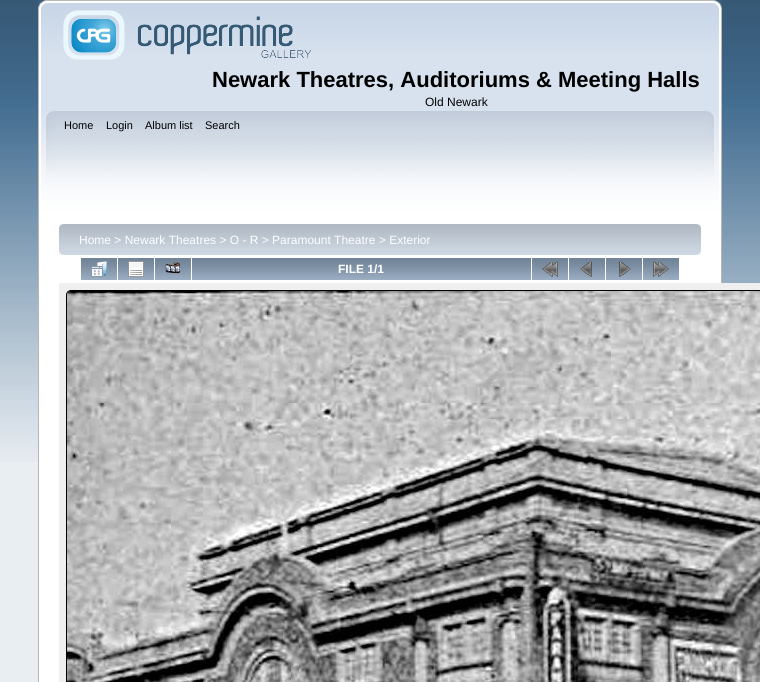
#include <cairo.h>
#include <math.h>
#include <stddef.h>

typedef struct { double x, y; const char *s; } line_t;
typedef struct { double x, y, w, h; unsigned color; } box_t;

static void ink(cairo_t *ctx, unsigned color) {
    cairo_set_source_rgb(ctx, (color >> 16) / 255.0, (color >> 8 & 255) / 255.0, (color & 255) / 255.0);
}

static void round_path(cairo_t *ctx, double x, double y, double w, double h, double r) {
    cairo_new_sub_path(ctx);
    cairo_arc(ctx, x + w - r, y + h - r, r, 0, M_PI / 2);
    cairo_arc(ctx, x + r, y + h - r, r, M_PI / 2, M_PI);
    cairo_arc(ctx, x + r, y + r, r, M_PI, 1.5 * M_PI);
    cairo_arc(ctx, x + w - r, y + r, r, 1.5 * M_PI, 2 * M_PI);
    cairo_close_path(ctx);
}

static void paste(cairo_t *ctx, const char *path, double x, double y, double w, double h) {
    cairo_surface_t *image = cairo_image_surface_create_from_png(path);
    cairo_save(ctx);
    cairo_set_source_surface(ctx, image, x, y);
    cairo_rectangle(ctx, x, y, w, h);
    cairo_fill(ctx);
    cairo_restore(ctx);
    cairo_surface_destroy(image);
}

int main(void) {
    cairo_surface_t *surface = cairo_image_surface_create(CAIRO_FORMAT_RGB24, 760, 682);
    cairo_t *ctx = cairo_create(surface);
    cairo_font_options_t *options = cairo_font_options_create();
    cairo_font_options_set_hint_metrics(options, CAIRO_HINT_METRICS_OFF);
    cairo_font_options_set_hint_style(options, CAIRO_HINT_STYLE_NONE);
    cairo_set_font_options(ctx, options);
    cairo_set_miter_limit(ctx, 4);
    ink(ctx, 0xE9EEF2);
    cairo_paint(ctx);
    paste(ctx, "media/1.png", 0, 0, 760, 462);
    paste(ctx, "media/2.png", 38, 0, 676, 111);
    paste(ctx, "media/3.png", 714, 0, 8, 111);
    paste(ctx, "media/4.png", 63, 10, 248, 50);
    cairo_select_font_face(ctx, "Liberation Sans", CAIRO_FONT_SLANT_NORMAL, CAIRO_FONT_WEIGHT_BOLD);
    cairo_set_font_size(ctx, 22);
    ink(ctx, 0x000000);
    cairo_move_to(ctx, 212, 87);
    cairo_show_text(ctx, "Newark Theatres, Auditoriums & Meeting Halls");
    cairo_select_font_face(ctx, "Liberation Sans", CAIRO_FONT_SLANT_NORMAL, CAIRO_FONT_WEIGHT_NORMAL);
    cairo_set_font_size(ctx, 12);
    cairo_move_to(ctx, 425, 106);
    cairo_show_text(ctx, "Old Newark");
    paste(ctx, "media/5.png", 38, 111, 669, 110);
    paste(ctx, "media/6.png", 707, 111, 15, 110);
    cairo_set_font_size(ctx, 11);
    {
        static const line_t items[] = {
            {64, 129, "Home"},
            {106, 129, "Login"},
            {145, 129, "Album list"},
            {205, 129, "Search"},
        };
        for (size_t i = 0; i < sizeof items / sizeof *items; i++) {
            cairo_move_to(ctx, items[i].x, items[i].y);
            cairo_show_text(ctx, items[i].s);
        }
    }
    {
        static const box_t items[] = {
            {39, 221, 682, 461, 0xFFFFFF},
            {38, 221, 1, 461, 0xB7B7B7},
            {721, 221, 1, 62, 0xB7B7B7},
        };
        for (size_t i = 0; i < sizeof items / sizeof *items; i++) {
            ink(ctx, items[i].color);
            cairo_rectangle(ctx, items[i].x, items[i].y, items[i].w, items[i].h);
            cairo_fill(ctx);
        }
    }
    paste(ctx, "media/7.png", 59, 224, 637, 31);
    paste(ctx, "media/8.png", 696, 224, 5, 31);
    cairo_set_font_size(ctx, 12);
    ink(ctx, 0xFFFFFF);
    cairo_move_to(ctx, 79, 244);
    cairo_show_text(ctx, "Home > Newark Theatres > O - R > Paramount Theatre > Exterior");
    paste(ctx, "media/9.png", 81, 258, 36, 22);
    paste(ctx, "media/10.png", 91, 261, 16, 16);
    paste(ctx, "media/9.png", 118, 258, 36, 22);
    paste(ctx, "media/11.png", 128, 261, 16, 16);
    paste(ctx, "media/9.png", 155, 258, 36, 22);
    paste(ctx, "media/12.png", 165, 262, 16, 12);
    paste(ctx, "media/13.png", 192, 258, 339, 22);
    cairo_select_font_face(ctx, "Liberation Sans", CAIRO_FONT_SLANT_NORMAL, CAIRO_FONT_WEIGHT_BOLD);
    cairo_move_to(ctx, 338, 273);
    cairo_show_text(ctx, "FILE 1/1");
    paste(ctx, "media/9.png", 532, 258, 36, 22);
    paste(ctx, "media/14.png", 542, 261, 16, 16);
    paste(ctx, "media/9.png", 569, 258, 36, 22);
    paste(ctx, "media/15.png", 580, 261, 12, 16);
    paste(ctx, "media/9.png", 606, 258, 36, 22);
    paste(ctx, "media/16.png", 619, 261, 12, 16);
    paste(ctx, "media/9.png", 643, 258, 36, 22);
    paste(ctx, "media/17.png", 653, 261, 16, 16);
    ink(ctx, 0xEFEFEF);
    cairo_rectangle(ctx, 59, 283, 701, 399);
    cairo_fill(ctx);
    round_path(ctx, 66.5, 290.5, 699, 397, 4.5);
    ink(ctx, 0x000000);
    cairo_set_line_width(ctx, 1);
    cairo_stroke(ctx);
    paste(ctx, "media/18.png", 67, 291, 693, 391);
    cairo_surface_write_to_png(surface, "image.png");
    cairo_font_options_destroy(options);
    cairo_destroy(ctx);
    cairo_surface_destroy(surface);
    return 0;
}
